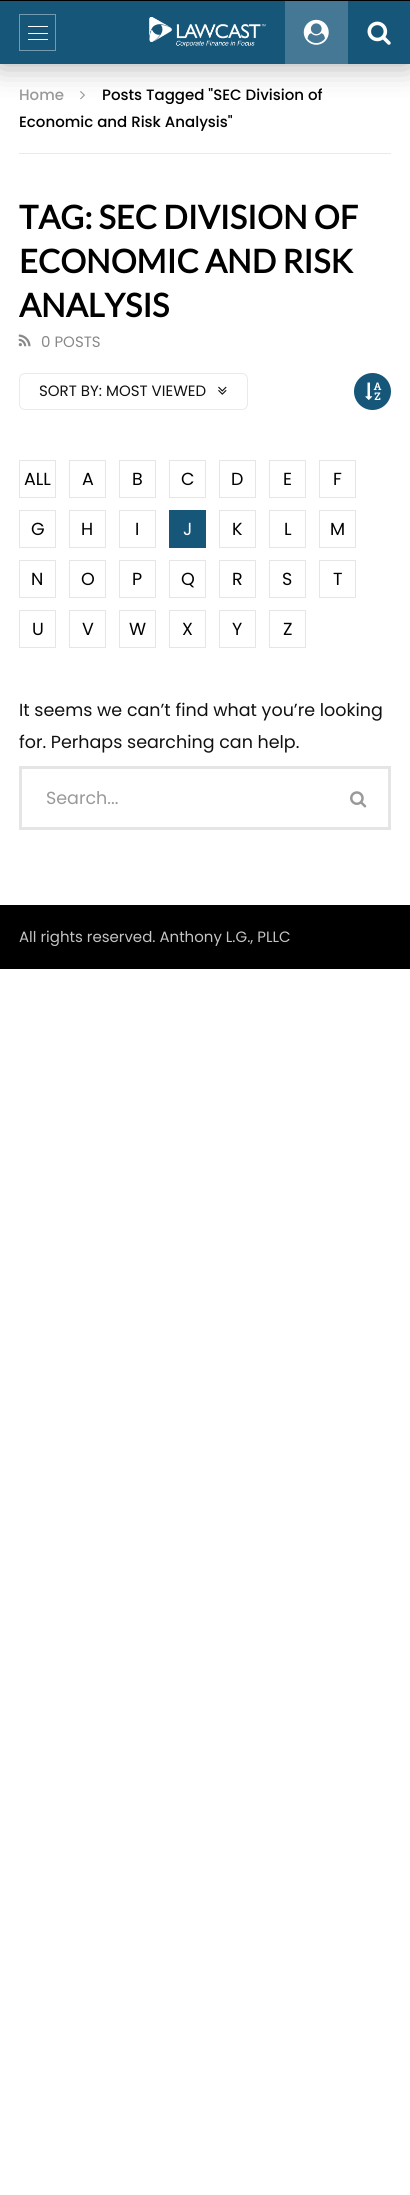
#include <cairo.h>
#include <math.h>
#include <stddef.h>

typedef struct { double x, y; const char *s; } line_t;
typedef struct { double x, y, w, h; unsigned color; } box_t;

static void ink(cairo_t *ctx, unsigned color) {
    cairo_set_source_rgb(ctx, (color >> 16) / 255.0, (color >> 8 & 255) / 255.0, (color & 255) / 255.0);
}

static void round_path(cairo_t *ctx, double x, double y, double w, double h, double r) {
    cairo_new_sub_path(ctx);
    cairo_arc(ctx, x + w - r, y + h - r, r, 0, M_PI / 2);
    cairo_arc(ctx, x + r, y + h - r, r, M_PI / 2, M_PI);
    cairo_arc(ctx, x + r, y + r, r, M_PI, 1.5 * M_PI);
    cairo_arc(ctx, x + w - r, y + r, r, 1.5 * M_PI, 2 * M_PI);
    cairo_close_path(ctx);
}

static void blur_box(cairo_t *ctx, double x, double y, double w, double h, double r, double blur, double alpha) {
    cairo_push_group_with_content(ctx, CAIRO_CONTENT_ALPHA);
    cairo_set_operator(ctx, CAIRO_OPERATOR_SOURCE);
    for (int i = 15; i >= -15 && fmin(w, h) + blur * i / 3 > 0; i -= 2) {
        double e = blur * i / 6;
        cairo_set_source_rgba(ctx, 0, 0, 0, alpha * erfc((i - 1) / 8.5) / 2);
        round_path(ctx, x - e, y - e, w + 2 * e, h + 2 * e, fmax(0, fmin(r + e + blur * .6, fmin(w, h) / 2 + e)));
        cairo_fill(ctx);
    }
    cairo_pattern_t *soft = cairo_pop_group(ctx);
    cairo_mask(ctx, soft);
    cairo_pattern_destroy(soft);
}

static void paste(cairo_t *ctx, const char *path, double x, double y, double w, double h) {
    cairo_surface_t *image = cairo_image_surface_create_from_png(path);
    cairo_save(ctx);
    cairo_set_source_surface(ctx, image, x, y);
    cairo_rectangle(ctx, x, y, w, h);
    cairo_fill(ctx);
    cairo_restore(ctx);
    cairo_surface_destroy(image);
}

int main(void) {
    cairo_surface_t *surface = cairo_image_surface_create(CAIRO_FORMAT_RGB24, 410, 2195);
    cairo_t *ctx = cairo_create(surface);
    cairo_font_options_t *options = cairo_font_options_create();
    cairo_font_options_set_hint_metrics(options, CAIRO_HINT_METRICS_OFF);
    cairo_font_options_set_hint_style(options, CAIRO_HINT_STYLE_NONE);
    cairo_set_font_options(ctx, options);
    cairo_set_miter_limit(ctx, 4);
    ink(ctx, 0xFFFFFF);
    cairo_paint(ctx);
    ink(ctx, 0x000000);
    cairo_rectangle(ctx, 0, 0, 410, 1);
    cairo_fill(ctx);
    paste(ctx, "media/4.png", 80, 91, 5, 9);
    ink(ctx, 0x000000);
    blur_box(ctx, 0, 1, 410, 63, 0, 15.5, 0.35);
    ink(ctx, 0x165679);
    cairo_rectangle(ctx, 0, 1, 410, 63);
    cairo_fill(ctx);
    cairo_rectangle(ctx, 19.5, 14.5, 36, 36);
    ink(ctx, 0x739AAF);
    cairo_set_line_width(ctx, 1);
    cairo_stroke(ctx);
    {
        static const box_t items[] = {
            {28, 26, 20, 1, 0xFFFFFF},
            {28, 33, 20, 1, 0xFFFFFF},
            {28, 39, 20, 1, 0xFFFFFF},
        };
        for (size_t i = 0; i < sizeof items / sizeof *items; i++) {
            ink(ctx, items[i].color);
            cairo_rectangle(ctx, items[i].x, items[i].y, items[i].w, items[i].h);
            cairo_fill(ctx);
        }
    }
    paste(ctx, "media/1.png", 149, 17, 117, 30);
    ink(ctx, 0x457894);
    cairo_rectangle(ctx, 285, 1, 63, 63);
    cairo_fill(ctx);
    paste(ctx, "media/2.png", 303, 19, 26, 26);
    paste(ctx, "media/3.png", 367, 21, 24, 24);
    ink(ctx, 0xEAEAEA);
    cairo_rectangle(ctx, 19, 153, 372, 1);
    cairo_fill(ctx);
    cairo_select_font_face(ctx, "Poppins Medium", CAIRO_FONT_SLANT_NORMAL, CAIRO_FONT_WEIGHT_NORMAL);
    cairo_set_font_size(ctx, 15);
    ink(ctx, 0x999999);
    cairo_move_to(ctx, 19, 100);
    cairo_show_text(ctx, "Home");
    ink(ctx, 0x000000);
    cairo_move_to(ctx, 102, 100);
    cairo_show_text(ctx, "Posts Tagged \"SEC Division of");
    cairo_move_to(ctx, 19, 127);
    cairo_show_text(ctx, "Economic and Risk Analysis\"");
    cairo_select_font_face(ctx, "Lato", CAIRO_FONT_SLANT_NORMAL, CAIRO_FONT_WEIGHT_BOLD);
    cairo_set_font_size(ctx, 32.5);
    {
        static const line_t items[] = {
            {19, 229, "TAG: SEC DIVISION OF"},
            {19, 273, "ECONOMIC AND RISK"},
            {19, 317, "ANALYSIS"},
        };
        for (size_t i = 0; i < sizeof items / sizeof *items; i++) {
            cairo_move_to(ctx, items[i].x, items[i].y);
            cairo_show_text(ctx, items[i].s);
        }
    }
    paste(ctx, "media/5.png", 18, 334, 13, 13);
    cairo_select_font_face(ctx, "Poppins", CAIRO_FONT_SLANT_NORMAL, CAIRO_FONT_WEIGHT_NORMAL);
    cairo_set_font_size(ctx, 15);
    ink(ctx, 0x888888);
    cairo_move_to(ctx, 41, 347);
    cairo_show_text(ctx, "0 POSTS");
    round_path(ctx, 19.5, 373.5, 228, 36, 5.5);
    ink(ctx, 0xEAEAEA);
    cairo_stroke(ctx);
    ink(ctx, 0x111111);
    cairo_move_to(ctx, 39, 396);
    cairo_show_text(ctx, "SORT BY: MOST VIEWED");
    paste(ctx, "media/6.png", 218, 386, 9, 9);
    ink(ctx, 0x165679);
    cairo_arc(ctx, 372.5, 391.5, 18.5, 0, 2 * M_PI);
    cairo_fill(ctx);
    paste(ctx, "media/7.png", 365, 382, 17, 18);
    cairo_rectangle(ctx, 19.5, 460.5, 36, 37);
    ink(ctx, 0xE6E6E6);
    cairo_stroke(ctx);
    cairo_set_font_size(ctx, 17.5);
    ink(ctx, 0x000000);
    cairo_move_to(ctx, 24, 485);
    cairo_show_text(ctx, "ALL");
    cairo_rectangle(ctx, 69.5, 460.5, 36, 37);
    ink(ctx, 0xE6E6E6);
    cairo_stroke(ctx);
    ink(ctx, 0x000000);
    cairo_move_to(ctx, 82, 485);
    cairo_show_text(ctx, "A");
    cairo_rectangle(ctx, 119.5, 460.5, 36, 37);
    ink(ctx, 0xE6E6E6);
    cairo_stroke(ctx);
    ink(ctx, 0x000000);
    cairo_move_to(ctx, 132, 485);
    cairo_show_text(ctx, "B");
    cairo_rectangle(ctx, 169.5, 460.5, 36, 37);
    ink(ctx, 0xE6E6E6);
    cairo_stroke(ctx);
    ink(ctx, 0x000000);
    cairo_move_to(ctx, 181, 485);
    cairo_show_text(ctx, "C");
    cairo_rectangle(ctx, 219.5, 460.5, 36, 37);
    ink(ctx, 0xE6E6E6);
    cairo_stroke(ctx);
    ink(ctx, 0x000000);
    cairo_move_to(ctx, 231, 485);
    cairo_show_text(ctx, "D");
    cairo_rectangle(ctx, 269.5, 460.5, 36, 37);
    ink(ctx, 0xE6E6E6);
    cairo_stroke(ctx);
    ink(ctx, 0x000000);
    cairo_move_to(ctx, 283, 485);
    cairo_show_text(ctx, "E");
    cairo_rectangle(ctx, 319.5, 460.5, 36, 37);
    ink(ctx, 0xE6E6E6);
    cairo_stroke(ctx);
    ink(ctx, 0x000000);
    cairo_move_to(ctx, 333, 485);
    cairo_show_text(ctx, "F");
    cairo_rectangle(ctx, 19.5, 510.5, 36, 37);
    ink(ctx, 0xE6E6E6);
    cairo_stroke(ctx);
    ink(ctx, 0x000000);
    cairo_move_to(ctx, 31, 535);
    cairo_show_text(ctx, "G");
    cairo_rectangle(ctx, 69.5, 510.5, 36, 37);
    ink(ctx, 0xE6E6E6);
    cairo_stroke(ctx);
    ink(ctx, 0x000000);
    cairo_move_to(ctx, 81, 535);
    cairo_show_text(ctx, "H");
    cairo_rectangle(ctx, 119.5, 510.5, 36, 37);
    ink(ctx, 0xE6E6E6);
    cairo_stroke(ctx);
    ink(ctx, 0x000000);
    cairo_move_to(ctx, 135, 535);
    cairo_show_text(ctx, "I");
    ink(ctx, 0x165679);
    cairo_rectangle(ctx, 169, 510, 37, 38);
    cairo_fill(ctx);
    ink(ctx, 0xFFFFFF);
    cairo_move_to(ctx, 183, 535);
    cairo_show_text(ctx, "J");
    cairo_rectangle(ctx, 219.5, 510.5, 36, 37);
    ink(ctx, 0xE6E6E6);
    cairo_stroke(ctx);
    ink(ctx, 0x000000);
    cairo_move_to(ctx, 232, 535);
    cairo_show_text(ctx, "K");
    cairo_rectangle(ctx, 269.5, 510.5, 36, 37);
    ink(ctx, 0xE6E6E6);
    cairo_stroke(ctx);
    ink(ctx, 0x000000);
    cairo_move_to(ctx, 284, 535);
    cairo_show_text(ctx, "L");
    cairo_rectangle(ctx, 319.5, 510.5, 36, 37);
    ink(ctx, 0xE6E6E6);
    cairo_stroke(ctx);
    ink(ctx, 0x000000);
    cairo_move_to(ctx, 330, 535);
    cairo_show_text(ctx, "M");
    cairo_rectangle(ctx, 19.5, 560.5, 36, 37);
    ink(ctx, 0xE6E6E6);
    cairo_stroke(ctx);
    ink(ctx, 0x000000);
    cairo_move_to(ctx, 31, 585);
    cairo_show_text(ctx, "N");
    cairo_rectangle(ctx, 69.5, 560.5, 36, 37);
    ink(ctx, 0xE6E6E6);
    cairo_stroke(ctx);
    ink(ctx, 0x000000);
    cairo_move_to(ctx, 81, 585);
    cairo_show_text(ctx, "O");
    cairo_rectangle(ctx, 119.5, 560.5, 36, 37);
    ink(ctx, 0xE6E6E6);
    cairo_stroke(ctx);
    ink(ctx, 0x000000);
    cairo_move_to(ctx, 132, 585);
    cairo_show_text(ctx, "P");
    cairo_rectangle(ctx, 169.5, 560.5, 36, 37);
    ink(ctx, 0xE6E6E6);
    cairo_stroke(ctx);
    ink(ctx, 0x000000);
    cairo_move_to(ctx, 181, 585);
    cairo_show_text(ctx, "Q");
    cairo_rectangle(ctx, 219.5, 560.5, 36, 37);
    ink(ctx, 0xE6E6E6);
    cairo_stroke(ctx);
    ink(ctx, 0x000000);
    cairo_move_to(ctx, 232, 585);
    cairo_show_text(ctx, "R");
    cairo_rectangle(ctx, 269.5, 560.5, 36, 37);
    ink(ctx, 0xE6E6E6);
    cairo_stroke(ctx);
    ink(ctx, 0x000000);
    cairo_move_to(ctx, 282, 585);
    cairo_show_text(ctx, "S");
    cairo_rectangle(ctx, 319.5, 560.5, 36, 37);
    ink(ctx, 0xE6E6E6);
    cairo_stroke(ctx);
    ink(ctx, 0x000000);
    cairo_move_to(ctx, 333, 585);
    cairo_show_text(ctx, "T");
    cairo_rectangle(ctx, 19.5, 610.5, 36, 37);
    ink(ctx, 0xE6E6E6);
    cairo_stroke(ctx);
    ink(ctx, 0x000000);
    cairo_move_to(ctx, 32, 635);
    cairo_show_text(ctx, "U");
    cairo_rectangle(ctx, 69.5, 610.5, 36, 37);
    ink(ctx, 0xE6E6E6);
    cairo_stroke(ctx);
    ink(ctx, 0x000000);
    cairo_move_to(ctx, 82, 635);
    cairo_show_text(ctx, "V");
    cairo_rectangle(ctx, 119.5, 610.5, 36, 37);
    ink(ctx, 0xE6E6E6);
    cairo_stroke(ctx);
    ink(ctx, 0x000000);
    cairo_move_to(ctx, 129, 635);
    cairo_show_text(ctx, "W");
    cairo_rectangle(ctx, 169.5, 610.5, 36, 37);
    ink(ctx, 0xE6E6E6);
    cairo_stroke(ctx);
    ink(ctx, 0x000000);
    cairo_move_to(ctx, 182, 635);
    cairo_show_text(ctx, "X");
    cairo_rectangle(ctx, 219.5, 610.5, 36, 37);
    ink(ctx, 0xE6E6E6);
    cairo_stroke(ctx);
    ink(ctx, 0x000000);
    cairo_move_to(ctx, 232, 635);
    cairo_show_text(ctx, "Y");
    cairo_rectangle(ctx, 269.5, 610.5, 36, 37);
    ink(ctx, 0xE6E6E6);
    cairo_stroke(ctx);
    ink(ctx, 0x000000);
    cairo_move_to(ctx, 283, 635);
    cairo_show_text(ctx, "Z");
    ink(ctx, 0x111111);
    cairo_move_to(ctx, 19, 716);
    cairo_show_text(ctx, "It seems we can’t find what you’re looking");
    cairo_move_to(ctx, 19, 748);
    cairo_show_text(ctx, "for. Perhaps searching can help.");
    cairo_rectangle(ctx, 20.5, 767.5, 369, 61);
    ink(ctx, 0xE5E5E5);
    cairo_set_line_width(ctx, 3);
    cairo_stroke(ctx);
    ink(ctx, 0x999999);
    cairo_move_to(ctx, 46, 804);
    cairo_show_text(ctx, "Search...");
    paste(ctx, "media/8.png", 350, 791, 17, 17);
    ink(ctx, 0x000000);
    cairo_rectangle(ctx, 0, 905, 410, 64);
    cairo_fill(ctx);
    cairo_set_font_size(ctx, 15);
    ink(ctx, 0xC4C4C4);
    cairo_move_to(ctx, 19, 942);
    cairo_show_text(ctx, "All rights reserved. Anthony L.G., PLLC");
    cairo_surface_write_to_png(surface, "image.png");
    cairo_font_options_destroy(options);
    cairo_destroy(ctx);
    cairo_surface_destroy(surface);
    return 0;
}
